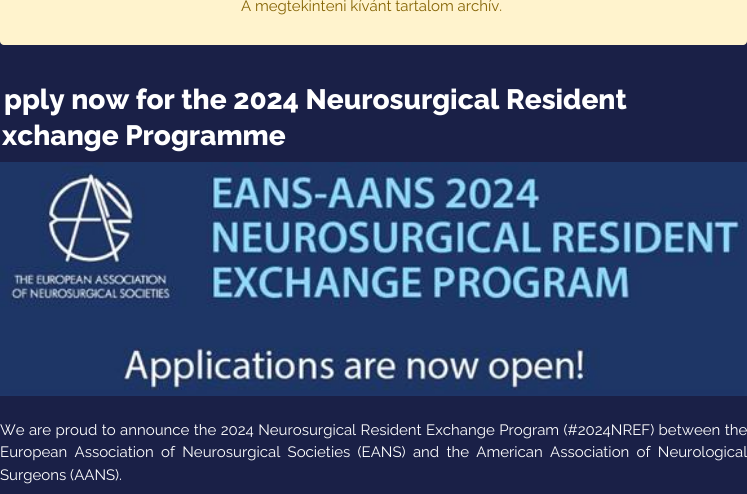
#include <cairo.h>
#include <math.h>
#include <stddef.h>


static void ink(cairo_t *ctx, unsigned color) {
    cairo_set_source_rgb(ctx, (color >> 16) / 255.0, (color >> 8 & 255) / 255.0, (color & 255) / 255.0);
}

static void write_spaced(cairo_t *ctx, double x, double y, const char *s, double letter, double word) {
    cairo_move_to(ctx, x, y);
    while (*s) {
        char ch[5] = {0};
        int n = 0;
        do ch[n++] = *s++; while ((*s & 0xC0) == 0x80);
        cairo_show_text(ctx, ch);
        cairo_rel_move_to(ctx, letter + word * (*ch == ' '), 0);
    }
}

static void round_path(cairo_t *ctx, double x, double y, double w, double h, double r) {
    cairo_new_sub_path(ctx);
    cairo_arc(ctx, x + w - r, y + h - r, r, 0, M_PI / 2);
    cairo_arc(ctx, x + r, y + h - r, r, M_PI / 2, M_PI);
    cairo_arc(ctx, x + r, y + r, r, M_PI, 1.5 * M_PI);
    cairo_arc(ctx, x + w - r, y + r, r, 1.5 * M_PI, 2 * M_PI);
    cairo_close_path(ctx);
}

static void paste(cairo_t *ctx, const char *path, double x, double y, double w, double h) {
    cairo_surface_t *image = cairo_image_surface_create_from_png(path);
    cairo_save(ctx);
    cairo_set_source_surface(ctx, image, x, y);
    cairo_rectangle(ctx, x, y, w, h);
    cairo_fill(ctx);
    cairo_restore(ctx);
    cairo_surface_destroy(image);
}

int main(void) {
    cairo_surface_t *surface = cairo_image_surface_create(CAIRO_FORMAT_RGB24, 747, 494);
    cairo_t *ctx = cairo_create(surface);
    cairo_font_options_t *options = cairo_font_options_create();
    cairo_font_options_set_hint_metrics(options, CAIRO_HINT_METRICS_OFF);
    cairo_font_options_set_hint_style(options, CAIRO_HINT_STYLE_NONE);
    cairo_set_font_options(ctx, options);
    cairo_set_miter_limit(ctx, 4);
    ink(ctx, 0x1A2047);
    cairo_paint(ctx);
    ink(ctx, 0xFFF3CD);
    round_path(ctx, 0, -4, 747, 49, 4);
    cairo_fill(ctx);
    cairo_select_font_face(ctx, "Raleway", CAIRO_FONT_SLANT_NORMAL, CAIRO_FONT_WEIGHT_NORMAL);
    cairo_set_font_size(ctx, 15);
    ink(ctx, 0x856404);
    cairo_move_to(ctx, 241, 11);
    cairo_show_text(ctx, "A megtekinteni kívánt tartalom archív.");
    cairo_select_font_face(ctx, "Raleway ExtraBold", CAIRO_FONT_SLANT_NORMAL, CAIRO_FONT_WEIGHT_NORMAL);
    cairo_set_font_size(ctx, 28);
    ink(ctx, 0xFFFFFF);
    cairo_move_to(ctx, 4, 109);
    cairo_show_text(ctx, "pply now for the 2024 Neurosurgical Resident");
    cairo_move_to(ctx, 2, 145);
    cairo_show_text(ctx, "xchange Programme");
    paste(ctx, "media/1.png", 0, 162, 747, 234);
    cairo_select_font_face(ctx, "Raleway", CAIRO_FONT_SLANT_NORMAL, CAIRO_FONT_WEIGHT_NORMAL);
    cairo_set_font_size(ctx, 15);
    write_spaced(ctx, 0, 435, "We are proud to announce the 2024 Neurosurgical Resident Exchange Program (#2024NREF) between the", 0, 0.6);
    write_spaced(ctx, 0, 457, "European Association of Neurosurgical Societies (EANS) and the American Association of Neurological", 0, 3.5);
    cairo_move_to(ctx, 0, 480);
    cairo_show_text(ctx, "Surgeons (AANS).");
    cairo_surface_write_to_png(surface, "image.png");
    cairo_font_options_destroy(options);
    cairo_destroy(ctx);
    cairo_surface_destroy(surface);
    return 0;
}
